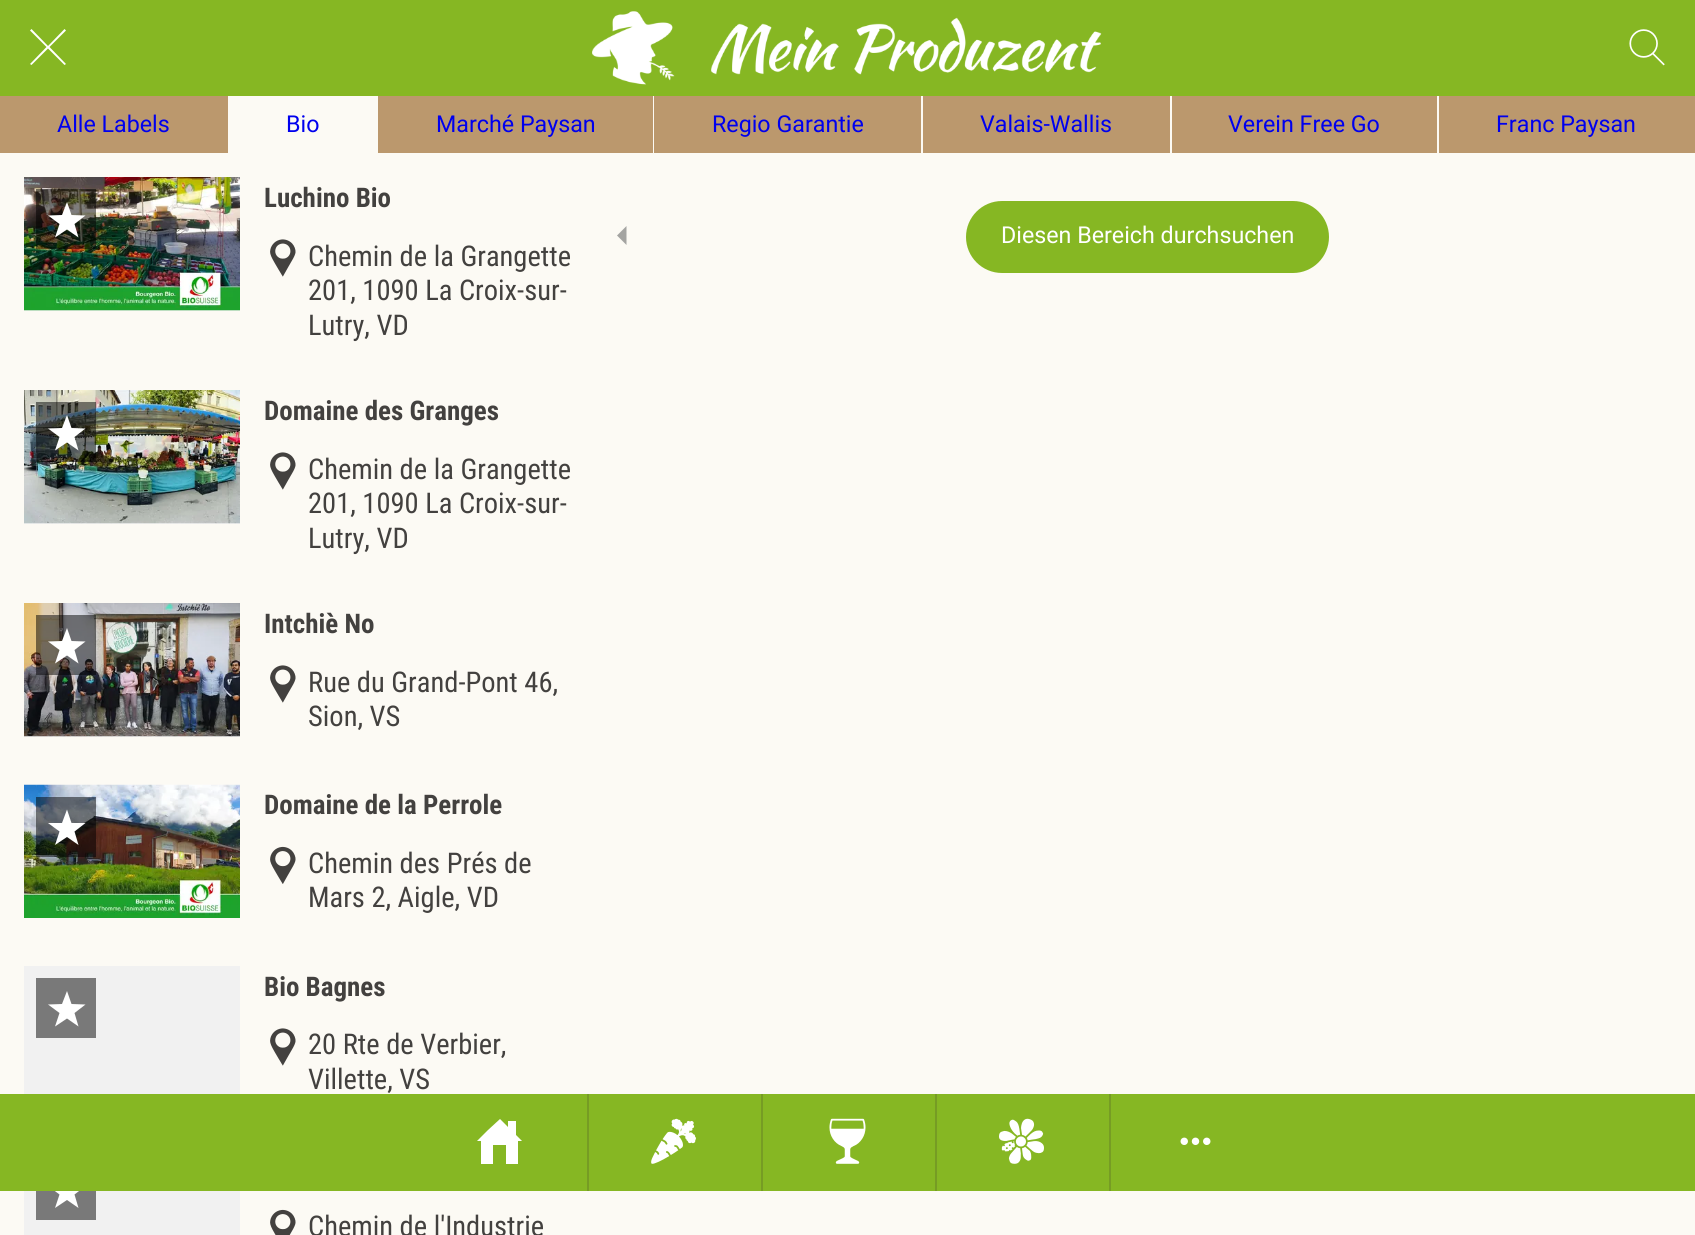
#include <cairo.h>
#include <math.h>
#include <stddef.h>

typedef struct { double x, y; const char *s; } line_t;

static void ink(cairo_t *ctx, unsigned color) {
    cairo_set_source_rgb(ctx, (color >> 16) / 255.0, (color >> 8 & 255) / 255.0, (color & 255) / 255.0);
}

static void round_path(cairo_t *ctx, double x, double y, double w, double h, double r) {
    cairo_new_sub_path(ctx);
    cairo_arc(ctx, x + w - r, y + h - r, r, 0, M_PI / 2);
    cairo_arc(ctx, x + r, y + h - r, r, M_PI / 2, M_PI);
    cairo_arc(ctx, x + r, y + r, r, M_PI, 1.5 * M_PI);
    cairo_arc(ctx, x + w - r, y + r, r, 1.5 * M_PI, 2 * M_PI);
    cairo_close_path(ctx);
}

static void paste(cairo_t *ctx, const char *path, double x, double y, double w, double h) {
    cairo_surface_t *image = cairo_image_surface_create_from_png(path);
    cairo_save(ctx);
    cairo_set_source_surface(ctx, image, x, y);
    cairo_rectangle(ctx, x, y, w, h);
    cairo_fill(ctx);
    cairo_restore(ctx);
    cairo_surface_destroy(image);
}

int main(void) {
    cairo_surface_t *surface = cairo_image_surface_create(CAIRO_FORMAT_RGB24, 1695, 1235);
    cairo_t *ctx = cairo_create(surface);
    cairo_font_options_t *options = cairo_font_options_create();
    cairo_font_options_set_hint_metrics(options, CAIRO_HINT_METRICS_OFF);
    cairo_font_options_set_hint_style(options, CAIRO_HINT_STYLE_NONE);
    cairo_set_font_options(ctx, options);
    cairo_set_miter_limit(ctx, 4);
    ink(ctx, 0xFCFAF4);
    cairo_paint(ctx);
    ink(ctx, 0x86B723);
    cairo_rectangle(ctx, 0, 0, 1695, 96);
    cairo_fill(ctx);
    ink(ctx, 0xFFFFFF);
    cairo_new_path(ctx);
    cairo_move_to(ctx, 66, 30.5);
    cairo_line_to(ctx, 64.5, 29);
    cairo_line_to(ctx, 48, 46);
    cairo_line_to(ctx, 31.5, 29);
    cairo_line_to(ctx, 30, 30.5);
    cairo_line_to(ctx, 46.5, 47);
    cairo_line_to(ctx, 30, 64);
    cairo_line_to(ctx, 31.5, 65);
    cairo_line_to(ctx, 48, 48.5);
    cairo_line_to(ctx, 64.5, 65);
    cairo_line_to(ctx, 66, 64);
    cairo_line_to(ctx, 49.5, 47);
    cairo_close_path(ctx);
    cairo_fill(ctx);
    paste(ctx, "media/1.png", 592, 11, 510, 74);
    paste(ctx, "media/2.png", 1629, 29, 36, 37);
    ink(ctx, 0xBB986D);
    cairo_rectangle(ctx, 0, 96, 1695, 57);
    cairo_fill(ctx);
    ink(ctx, 0xFCFAF4);
    cairo_rectangle(ctx, 228, 96, 150, 57);
    cairo_fill(ctx);
    cairo_select_font_face(ctx, "Roboto", CAIRO_FONT_SLANT_NORMAL, CAIRO_FONT_WEIGHT_NORMAL);
    cairo_set_font_size(ctx, 23.25);
    ink(ctx, 0x0000EE);
    cairo_move_to(ctx, 57, 132);
    cairo_show_text(ctx, "Alle Labels");
    cairo_move_to(ctx, 286, 132);
    cairo_show_text(ctx, "Bio");
    ink(ctx, 0xFCFAF4);
    cairo_rectangle(ctx, 653, 96, 1, 57);
    cairo_fill(ctx);
    ink(ctx, 0x0000EE);
    cairo_move_to(ctx, 436, 132);
    cairo_show_text(ctx, "Marché Paysan");
    ink(ctx, 0xFCFAF4);
    cairo_rectangle(ctx, 921, 96, 2, 57);
    cairo_fill(ctx);
    ink(ctx, 0x0000EE);
    cairo_move_to(ctx, 712, 132);
    cairo_show_text(ctx, "Regio Garantie");
    ink(ctx, 0xFCFAF4);
    cairo_rectangle(ctx, 1170, 96, 2, 57);
    cairo_fill(ctx);
    ink(ctx, 0x0000EE);
    cairo_move_to(ctx, 980, 132);
    cairo_show_text(ctx, "Valais-Wallis");
    ink(ctx, 0xFCFAF4);
    cairo_rectangle(ctx, 1437, 96, 2, 57);
    cairo_fill(ctx);
    ink(ctx, 0x0000EE);
    cairo_move_to(ctx, 1228, 132);
    cairo_show_text(ctx, "Verein Free Go");
    cairo_move_to(ctx, 1496, 132);
    cairo_show_text(ctx, "Franc Paysan");
    ink(ctx, 0xF1F1F1);
    cairo_rectangle(ctx, 24, 1191, 216, 44);
    cairo_fill(ctx);
    ink(ctx, 0x797979);
    cairo_rectangle(ctx, 36, 1191, 60, 29);
    cairo_fill(ctx);
    ink(ctx, 0xFFFFFF);
    cairo_new_path(ctx);
    cairo_move_to(ctx, 85.5, 1186);
    cairo_line_to(ctx, 71.5, 1186);
    cairo_line_to(ctx, 67, 1172.5);
    cairo_line_to(ctx, 62, 1186);
    cairo_line_to(ctx, 48, 1186);
    cairo_line_to(ctx, 59.5, 1194.5);
    cairo_line_to(ctx, 55, 1208);
    cairo_line_to(ctx, 67, 1200);
    cairo_line_to(ctx, 78.5, 1208);
    cairo_line_to(ctx, 74.5, 1194.5);
    cairo_close_path(ctx);
    cairo_fill(ctx);
    ink(ctx, 0x86B723);
    cairo_rectangle(ctx, 0, 1094, 1695, 97);
    cairo_fill(ctx);
    ink(ctx, 0x769C24);
    cairo_rectangle(ctx, 587, 1094, 2, 97);
    cairo_fill(ctx);
    ink(ctx, 0xFFFFFF);
    cairo_new_path(ctx);
    cairo_move_to(ctx, 488, 1130);
    cairo_line_to(ctx, 477, 1141);
    cairo_line_to(ctx, 481, 1141);
    cairo_line_to(ctx, 481, 1164);
    cairo_line_to(ctx, 493, 1164);
    cairo_line_to(ctx, 493, 1145);
    cairo_line_to(ctx, 506, 1145);
    cairo_line_to(ctx, 506, 1164);
    cairo_line_to(ctx, 518, 1164);
    cairo_line_to(ctx, 518, 1141);
    cairo_line_to(ctx, 522, 1141);
    cairo_line_to(ctx, 516, 1135);
    cairo_line_to(ctx, 516, 1121);
    cairo_line_to(ctx, 508, 1121);
    cairo_line_to(ctx, 508, 1127);
    cairo_line_to(ctx, 500, 1119);
    cairo_close_path(ctx);
    cairo_fill(ctx);
    ink(ctx, 0x769C24);
    cairo_rectangle(ctx, 761, 1094, 2, 97);
    cairo_fill(ctx);
    paste(ctx, "media/3.png", 651, 1118, 45, 46);
    cairo_rectangle(ctx, 935, 1094, 2, 97);
    cairo_fill(ctx);
    paste(ctx, "media/4.png", 829, 1118, 37, 46);
    cairo_rectangle(ctx, 1109, 1094, 2, 97);
    cairo_fill(ctx);
    paste(ctx, "media/5.png", 999, 1118, 45, 46);
    paste(ctx, "media/6.png", 1180, 1137, 31, 8);
    ink(ctx, 0xF1F1F1);
    cairo_rectangle(ctx, 24, 310, 216, 1);
    cairo_fill(ctx);
    paste(ctx, "media/7.png", 24, 177, 216, 134);
    cairo_set_source_rgba(ctx, 0, 0, 0, 0.5);
    cairo_rectangle(ctx, 36, 189, 60, 60);
    cairo_fill(ctx);
    ink(ctx, 0xFFFFFF);
    cairo_new_path(ctx);
    cairo_move_to(ctx, 85.5, 215.5);
    cairo_line_to(ctx, 71.5, 215);
    cairo_line_to(ctx, 67, 202);
    cairo_line_to(ctx, 62, 215);
    cairo_line_to(ctx, 48, 215.5);
    cairo_line_to(ctx, 59.5, 224);
    cairo_line_to(ctx, 55, 237.5);
    cairo_line_to(ctx, 67, 229.5);
    cairo_line_to(ctx, 78.5, 237.5);
    cairo_line_to(ctx, 74.5, 224);
    cairo_close_path(ctx);
    cairo_fill(ctx);
    cairo_select_font_face(ctx, "Roboto Condensed", CAIRO_FONT_SLANT_NORMAL, CAIRO_FONT_WEIGHT_BOLD);
    cairo_set_font_size(ctx, 27);
    ink(ctx, 0x43413F);
    cairo_move_to(ctx, 264, 207);
    cairo_show_text(ctx, "Luchino Bio");
    paste(ctx, "media/8.png", 270, 239, 26, 38);
    cairo_select_font_face(ctx, "Roboto Condensed", CAIRO_FONT_SLANT_NORMAL, CAIRO_FONT_WEIGHT_NORMAL);
    cairo_set_font_size(ctx, 28.5);
    {
        static const line_t items[] = {
            {308, 266, "Chemin de la Grangette"},
            {308, 300, "201, 1090 La Croix-sur-"},
            {308, 335, "Lutry, VD"},
        };
        for (size_t i = 0; i < sizeof items / sizeof *items; i++) {
            cairo_move_to(ctx, items[i].x, items[i].y);
            cairo_show_text(ctx, items[i].s);
        }
    }
    ink(ctx, 0xF1F1F1);
    cairo_rectangle(ctx, 24, 523, 216, 1);
    cairo_fill(ctx);
    paste(ctx, "media/9.png", 24, 390, 216, 134);
    cairo_set_source_rgba(ctx, 0, 0, 0, 0.5);
    cairo_rectangle(ctx, 36, 402, 60, 60);
    cairo_fill(ctx);
    ink(ctx, 0xFFFFFF);
    cairo_new_path(ctx);
    cairo_move_to(ctx, 85.5, 428.5);
    cairo_line_to(ctx, 71.5, 428);
    cairo_line_to(ctx, 67, 415);
    cairo_line_to(ctx, 62, 428);
    cairo_line_to(ctx, 48, 428.5);
    cairo_line_to(ctx, 59.5, 437);
    cairo_line_to(ctx, 55, 450.5);
    cairo_line_to(ctx, 67, 442.5);
    cairo_line_to(ctx, 78.5, 450.5);
    cairo_line_to(ctx, 74.5, 437);
    cairo_close_path(ctx);
    cairo_fill(ctx);
    cairo_select_font_face(ctx, "Roboto Condensed", CAIRO_FONT_SLANT_NORMAL, CAIRO_FONT_WEIGHT_BOLD);
    cairo_set_font_size(ctx, 27);
    ink(ctx, 0x43413F);
    cairo_move_to(ctx, 264, 420);
    cairo_show_text(ctx, "Domaine des Granges");
    paste(ctx, "media/8.png", 270, 452, 26, 38);
    cairo_select_font_face(ctx, "Roboto Condensed", CAIRO_FONT_SLANT_NORMAL, CAIRO_FONT_WEIGHT_NORMAL);
    cairo_set_font_size(ctx, 28.5);
    {
        static const line_t items[] = {
            {308, 479, "Chemin de la Grangette"},
            {308, 513, "201, 1090 La Croix-sur-"},
            {308, 548, "Lutry, VD"},
        };
        for (size_t i = 0; i < sizeof items / sizeof *items; i++) {
            cairo_move_to(ctx, items[i].x, items[i].y);
            cairo_show_text(ctx, items[i].s);
        }
    }
    ink(ctx, 0xF1F1F1);
    cairo_rectangle(ctx, 24, 736, 216, 1);
    cairo_fill(ctx);
    paste(ctx, "media/10.png", 24, 603, 216, 134);
    cairo_set_source_rgba(ctx, 0, 0, 0, 0.5);
    cairo_rectangle(ctx, 36, 615, 60, 60);
    cairo_fill(ctx);
    ink(ctx, 0xFFFFFF);
    cairo_new_path(ctx);
    cairo_move_to(ctx, 85.5, 641.5);
    cairo_line_to(ctx, 71.5, 641);
    cairo_line_to(ctx, 67, 628);
    cairo_line_to(ctx, 62, 641);
    cairo_line_to(ctx, 48, 641.5);
    cairo_line_to(ctx, 59.5, 650);
    cairo_line_to(ctx, 55, 663.5);
    cairo_line_to(ctx, 67, 655.5);
    cairo_line_to(ctx, 78.5, 663.5);
    cairo_line_to(ctx, 74.5, 650);
    cairo_close_path(ctx);
    cairo_fill(ctx);
    cairo_select_font_face(ctx, "Roboto Condensed", CAIRO_FONT_SLANT_NORMAL, CAIRO_FONT_WEIGHT_BOLD);
    cairo_set_font_size(ctx, 27);
    ink(ctx, 0x43413F);
    cairo_move_to(ctx, 264, 633);
    cairo_show_text(ctx, "Intchiè No");
    paste(ctx, "media/8.png", 270, 665, 26, 38);
    cairo_select_font_face(ctx, "Roboto Condensed", CAIRO_FONT_SLANT_NORMAL, CAIRO_FONT_WEIGHT_NORMAL);
    cairo_set_font_size(ctx, 28.5);
    cairo_move_to(ctx, 308, 692);
    cairo_show_text(ctx, "Rue du Grand-Pont 46,");
    cairo_move_to(ctx, 308, 726);
    cairo_show_text(ctx, "Sion, VS");
    paste(ctx, "media/11.png", 24, 784, 216, 134);
    cairo_set_source_rgba(ctx, 0, 0, 0, 0.5);
    cairo_rectangle(ctx, 36, 797, 60, 60);
    cairo_fill(ctx);
    ink(ctx, 0xFFFFFF);
    cairo_new_path(ctx);
    cairo_move_to(ctx, 85.5, 823);
    cairo_line_to(ctx, 71.5, 823);
    cairo_line_to(ctx, 67, 809.5);
    cairo_line_to(ctx, 62, 823);
    cairo_line_to(ctx, 48, 823);
    cairo_line_to(ctx, 59.5, 831.5);
    cairo_line_to(ctx, 55, 845);
    cairo_line_to(ctx, 67, 837);
    cairo_line_to(ctx, 78.5, 845);
    cairo_line_to(ctx, 74.5, 831.5);
    cairo_close_path(ctx);
    cairo_fill(ctx);
    cairo_select_font_face(ctx, "Roboto Condensed", CAIRO_FONT_SLANT_NORMAL, CAIRO_FONT_WEIGHT_BOLD);
    cairo_set_font_size(ctx, 27);
    ink(ctx, 0x43413F);
    cairo_move_to(ctx, 264, 814);
    cairo_show_text(ctx, "Domaine de la Perrole");
    paste(ctx, "media/12.png", 270, 846, 26, 38);
    cairo_select_font_face(ctx, "Roboto Condensed", CAIRO_FONT_SLANT_NORMAL, CAIRO_FONT_WEIGHT_NORMAL);
    cairo_set_font_size(ctx, 28.5);
    cairo_move_to(ctx, 308, 873);
    cairo_show_text(ctx, "Chemin des Prés de");
    cairo_move_to(ctx, 308, 907);
    cairo_show_text(ctx, "Mars 2, Aigle, VD");
    ink(ctx, 0xF1F1F1);
    cairo_rectangle(ctx, 24, 966, 216, 128);
    cairo_fill(ctx);
    ink(ctx, 0x797979);
    cairo_rectangle(ctx, 36, 978, 60, 60);
    cairo_fill(ctx);
    ink(ctx, 0xFFFFFF);
    cairo_new_path(ctx);
    cairo_move_to(ctx, 85.5, 1004.5);
    cairo_line_to(ctx, 71.5, 1004);
    cairo_line_to(ctx, 67, 991);
    cairo_line_to(ctx, 62, 1004);
    cairo_line_to(ctx, 48, 1004.5);
    cairo_line_to(ctx, 59.5, 1013);
    cairo_line_to(ctx, 55, 1026.5);
    cairo_line_to(ctx, 67, 1018.5);
    cairo_line_to(ctx, 78.5, 1026.5);
    cairo_line_to(ctx, 74.5, 1013);
    cairo_close_path(ctx);
    cairo_fill(ctx);
    cairo_select_font_face(ctx, "Roboto Condensed", CAIRO_FONT_SLANT_NORMAL, CAIRO_FONT_WEIGHT_BOLD);
    cairo_set_font_size(ctx, 27);
    ink(ctx, 0x43413F);
    cairo_move_to(ctx, 264, 996);
    cairo_show_text(ctx, "Bio Bagnes");
    paste(ctx, "media/8.png", 270, 1028, 26, 38);
    cairo_select_font_face(ctx, "Roboto Condensed", CAIRO_FONT_SLANT_NORMAL, CAIRO_FONT_WEIGHT_NORMAL);
    cairo_set_font_size(ctx, 28.5);
    cairo_move_to(ctx, 308, 1054);
    cairo_show_text(ctx, "20 Rte de Verbier,");
    cairo_move_to(ctx, 308, 1089);
    cairo_show_text(ctx, "Villette, VS");
    paste(ctx, "media/13.png", 270, 1209, 26, 26);
    cairo_move_to(ctx, 308, 1236);
    cairo_show_text(ctx, "Chemin de l'Industrie");
    ink(ctx, 0xA4A4A1);
    cairo_new_path(ctx);
    cairo_move_to(ctx, 626.5, 226);
    cairo_line_to(ctx, 617, 235.5);
    cairo_line_to(ctx, 626.5, 245);
    cairo_close_path(ctx);
    cairo_fill(ctx);
    ink(ctx, 0x86B723);
    round_path(ctx, 966, 201, 363, 72, 36);
    cairo_fill(ctx);
    cairo_select_font_face(ctx, "Roboto", CAIRO_FONT_SLANT_NORMAL, CAIRO_FONT_WEIGHT_NORMAL);
    cairo_set_font_size(ctx, 23.25);
    ink(ctx, 0xFFFFFF);
    cairo_move_to(ctx, 1001, 243);
    cairo_show_text(ctx, "Diesen Bereich durchsuchen");
    cairo_surface_write_to_png(surface, "image.png");
    cairo_font_options_destroy(options);
    cairo_destroy(ctx);
    cairo_surface_destroy(surface);
    return 0;
}
